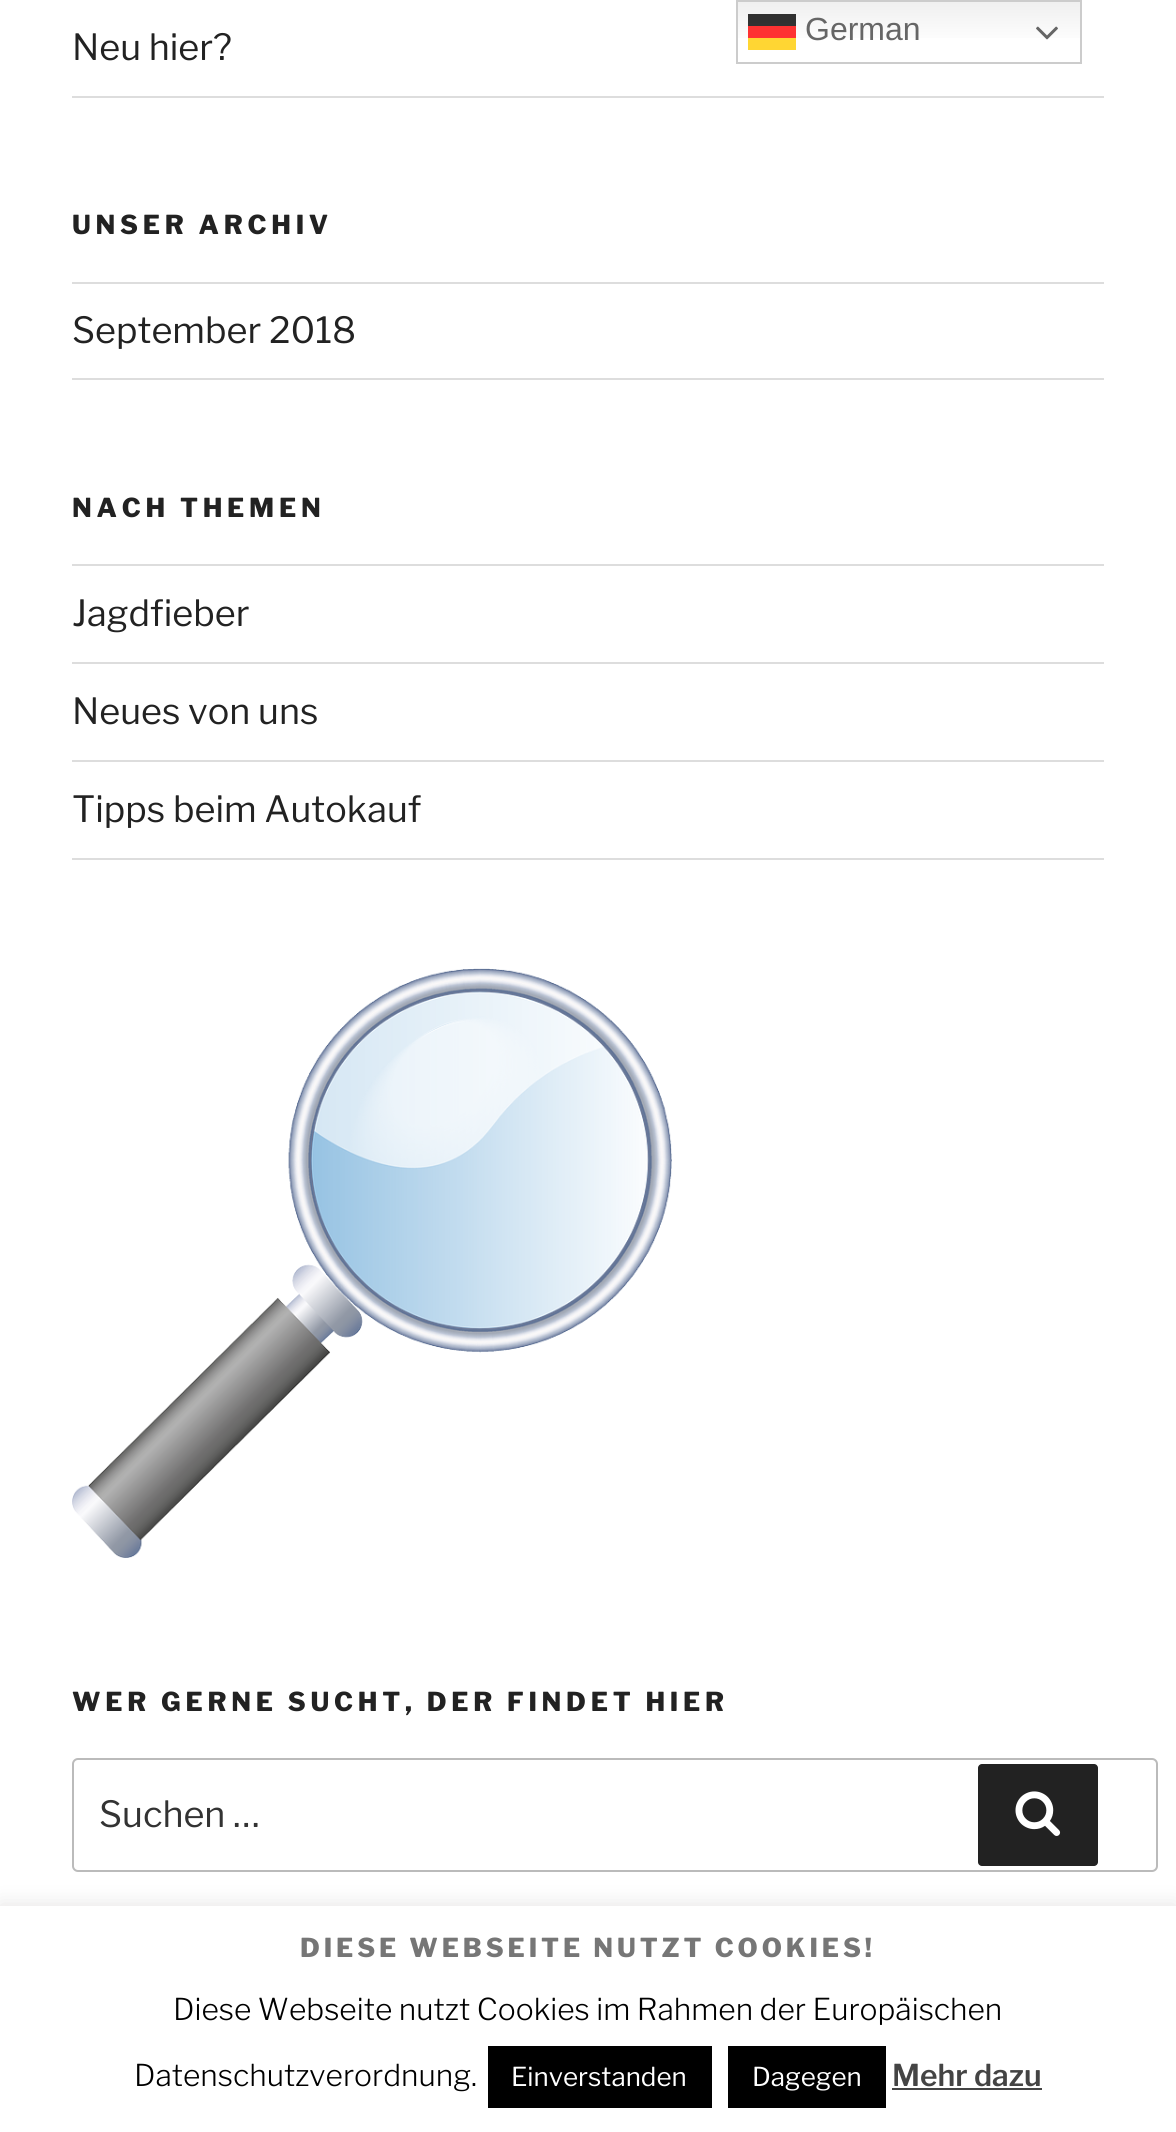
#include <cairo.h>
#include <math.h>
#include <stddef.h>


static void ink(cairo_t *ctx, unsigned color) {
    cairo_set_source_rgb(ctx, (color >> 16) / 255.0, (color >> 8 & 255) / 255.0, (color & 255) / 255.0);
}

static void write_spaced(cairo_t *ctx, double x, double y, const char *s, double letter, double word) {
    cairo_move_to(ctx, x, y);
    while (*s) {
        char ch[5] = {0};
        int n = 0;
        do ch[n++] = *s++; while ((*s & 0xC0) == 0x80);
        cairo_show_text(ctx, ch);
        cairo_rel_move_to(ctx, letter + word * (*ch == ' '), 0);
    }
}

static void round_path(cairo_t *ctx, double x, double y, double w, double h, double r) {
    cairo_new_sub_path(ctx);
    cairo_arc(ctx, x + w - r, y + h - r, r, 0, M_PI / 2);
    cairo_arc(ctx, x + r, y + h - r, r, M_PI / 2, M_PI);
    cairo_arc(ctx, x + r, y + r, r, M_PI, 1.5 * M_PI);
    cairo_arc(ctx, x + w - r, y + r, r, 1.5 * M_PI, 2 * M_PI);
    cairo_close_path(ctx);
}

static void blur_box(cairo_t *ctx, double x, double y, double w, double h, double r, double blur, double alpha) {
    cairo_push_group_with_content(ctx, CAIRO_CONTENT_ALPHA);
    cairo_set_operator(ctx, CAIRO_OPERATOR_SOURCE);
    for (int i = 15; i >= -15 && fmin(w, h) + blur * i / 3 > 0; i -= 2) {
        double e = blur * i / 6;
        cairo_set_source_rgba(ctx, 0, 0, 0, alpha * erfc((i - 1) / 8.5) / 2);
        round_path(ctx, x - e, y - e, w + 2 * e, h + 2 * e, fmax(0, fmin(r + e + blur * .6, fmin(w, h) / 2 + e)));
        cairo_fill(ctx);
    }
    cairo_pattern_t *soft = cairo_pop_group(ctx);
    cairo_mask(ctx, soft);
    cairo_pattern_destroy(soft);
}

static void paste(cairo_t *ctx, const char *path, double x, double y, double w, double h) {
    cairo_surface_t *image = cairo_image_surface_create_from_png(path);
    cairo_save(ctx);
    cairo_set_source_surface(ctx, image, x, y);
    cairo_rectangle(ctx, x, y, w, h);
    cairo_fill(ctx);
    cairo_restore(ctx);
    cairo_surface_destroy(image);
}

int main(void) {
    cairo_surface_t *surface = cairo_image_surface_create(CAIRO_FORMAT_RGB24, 1176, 2132);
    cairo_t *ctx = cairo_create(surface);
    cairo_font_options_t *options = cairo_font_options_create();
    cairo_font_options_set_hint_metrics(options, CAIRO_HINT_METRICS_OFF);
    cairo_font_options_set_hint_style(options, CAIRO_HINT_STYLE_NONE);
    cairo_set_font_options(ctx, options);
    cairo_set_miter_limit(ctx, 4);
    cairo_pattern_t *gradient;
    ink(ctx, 0xFFFFFF);
    cairo_paint(ctx);
    gradient = cairo_pattern_create_linear(909, 0, 909, 64);
    cairo_pattern_add_color_stop_rgba(gradient, 0, 0.937, 0.937, 0.937, 1);
    cairo_pattern_add_color_stop_rgba(gradient, 0.7, 1, 1, 1, 1);
    cairo_set_source(ctx, gradient);
    cairo_pattern_destroy(gradient);
    cairo_rectangle(ctx, 738, 2, 342, 36);
    cairo_fill(ctx);
    gradient = cairo_pattern_create_linear(909, 0, 909, 64);
    cairo_pattern_add_color_stop_rgba(gradient, 0, 0.988, 0.188, 0.188, 1);
    cairo_pattern_add_color_stop_rgba(gradient, 0.7, 1, 0.2, 0.2, 1);
    cairo_set_source(ctx, gradient);
    cairo_pattern_destroy(gradient);
    cairo_rectangle(ctx, 748, 26, 48, 12);
    cairo_fill(ctx);
    gradient = cairo_pattern_create_linear(909, 0, 909, 64);
    cairo_pattern_add_color_stop_rgba(gradient, 0, 0.188, 0.188, 0.188, 1);
    cairo_pattern_add_color_stop_rgba(gradient, 0.7, 0.2, 0.2, 0.2, 1);
    cairo_set_source(ctx, gradient);
    cairo_pattern_destroy(gradient);
    cairo_rectangle(ctx, 748, 14, 48, 12);
    cairo_fill(ctx);
    cairo_rectangle(ctx, 737, 1, 344, 62);
    ink(ctx, 0xCCCCCC);
    cairo_stroke(ctx);
    cairo_select_font_face(ctx, "Liberation Sans", CAIRO_FONT_SLANT_NORMAL, CAIRO_FONT_WEIGHT_NORMAL);
    cairo_set_font_size(ctx, 32);
    ink(ctx, 0x666666);
    cairo_move_to(ctx, 805, 40);
    cairo_show_text(ctx, "German");
    paste(ctx, "media/1.png", 1036, 26, 22, 14);
    ink(ctx, 0xFFD633);
    cairo_rectangle(ctx, 748, 38, 48, 12);
    cairo_fill(ctx);
    ink(ctx, 0xDDDDDD);
    cairo_rectangle(ctx, 72, 96, 1032, 2);
    cairo_fill(ctx);
    cairo_select_font_face(ctx, "Libre Franklin Thin", CAIRO_FONT_SLANT_NORMAL, CAIRO_FONT_WEIGHT_NORMAL);
    cairo_set_font_size(ctx, 36);
    ink(ctx, 0x222222);
    cairo_move_to(ctx, 72, 60);
    cairo_show_text(ctx, "Neu hier?");
    cairo_select_font_face(ctx, "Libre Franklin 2 Thin", CAIRO_FONT_SLANT_NORMAL, CAIRO_FONT_WEIGHT_NORMAL);
    cairo_set_font_size(ctx, 26);
    write_spaced(ctx, 72, 234, "UNSER ARCHIV", 4.75, 0);
    ink(ctx, 0xDDDDDD);
    cairo_rectangle(ctx, 72, 282, 1032, 2);
    cairo_fill(ctx);
    cairo_rectangle(ctx, 72, 378, 1032, 2);
    cairo_fill(ctx);
    cairo_select_font_face(ctx, "Libre Franklin Thin", CAIRO_FONT_SLANT_NORMAL, CAIRO_FONT_WEIGHT_NORMAL);
    cairo_set_font_size(ctx, 36);
    ink(ctx, 0x222222);
    cairo_move_to(ctx, 72, 343);
    cairo_show_text(ctx, "September 2018");
    cairo_select_font_face(ctx, "Libre Franklin 2 Thin", CAIRO_FONT_SLANT_NORMAL, CAIRO_FONT_WEIGHT_NORMAL);
    cairo_set_font_size(ctx, 26);
    write_spaced(ctx, 72, 517, "NACH THEMEN", 4.75, 0);
    ink(ctx, 0xDDDDDD);
    cairo_rectangle(ctx, 72, 564, 1032, 2);
    cairo_fill(ctx);
    cairo_rectangle(ctx, 72, 662, 1032, 2);
    cairo_fill(ctx);
    cairo_select_font_face(ctx, "Libre Franklin Thin", CAIRO_FONT_SLANT_NORMAL, CAIRO_FONT_WEIGHT_NORMAL);
    cairo_set_font_size(ctx, 36);
    ink(ctx, 0x222222);
    cairo_move_to(ctx, 72, 626);
    cairo_show_text(ctx, "Jagdfieber");
    ink(ctx, 0xDDDDDD);
    cairo_rectangle(ctx, 72, 760, 1032, 2);
    cairo_fill(ctx);
    ink(ctx, 0x222222);
    cairo_move_to(ctx, 72, 724);
    cairo_show_text(ctx, "Neues von uns");
    ink(ctx, 0xDDDDDD);
    cairo_rectangle(ctx, 72, 858, 1032, 2);
    cairo_fill(ctx);
    ink(ctx, 0x222222);
    cairo_move_to(ctx, 72, 822);
    cairo_show_text(ctx, "Tipps beim Autokauf");
    paste(ctx, "media/2.png", 72, 968, 600, 590);
    cairo_select_font_face(ctx, "Libre Franklin 2 Thin", CAIRO_FONT_SLANT_NORMAL, CAIRO_FONT_WEIGHT_NORMAL);
    cairo_set_font_size(ctx, 26);
    write_spaced(ctx, 72, 1711, "WER GERNE SUCHT, DER FINDET HIER", 4.75, 0);
    round_path(ctx, 73, 1759, 1084, 112, 5);
    ink(ctx, 0xBBBBBB);
    cairo_stroke(ctx);
    cairo_select_font_face(ctx, "Libre Franklin Thin", CAIRO_FONT_SLANT_NORMAL, CAIRO_FONT_WEIGHT_NORMAL);
    cairo_set_font_size(ctx, 36);
    ink(ctx, 0x333333);
    cairo_move_to(ctx, 99, 1827);
    cairo_show_text(ctx, "Suchen …");
    ink(ctx, 0x222222);
    round_path(ctx, 978, 1764, 120, 102, 4);
    cairo_fill(ctx);
    paste(ctx, "media/3.png", 1015, 1791, 46, 45);
    ink(ctx, 0xACABAB);
    blur_box(ctx, 0, 1904, 1176, 226, 0, 10, 0.3);
    ink(ctx, 0xFFFFFF);
    cairo_rectangle(ctx, 0, 1906, 1176, 226);
    cairo_fill(ctx);
    cairo_select_font_face(ctx, "Libre Franklin 2 Thin", CAIRO_FONT_SLANT_NORMAL, CAIRO_FONT_WEIGHT_NORMAL);
    cairo_set_font_size(ctx, 26);
    ink(ctx, 0x767676);
    write_spaced(ctx, 300, 1957, "DIESE WEBSEITE NUTZT COOKIES!", 3.9, 0);
    cairo_select_font_face(ctx, "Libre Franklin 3 Thin", CAIRO_FONT_SLANT_NORMAL, CAIRO_FONT_WEIGHT_NORMAL);
    cairo_set_font_size(ctx, 30);
    ink(ctx, 0x000000);
    cairo_move_to(ctx, 173, 2020);
    cairo_show_text(ctx, "Diese Webseite nutzt Cookies im Rahmen der Europäischen");
    cairo_move_to(ctx, 134, 2086);
    cairo_show_text(ctx, "Datenschutzverordnung.");
    cairo_rectangle(ctx, 488, 2046, 224, 62);
    cairo_fill(ctx);
    cairo_select_font_face(ctx, "Libre Franklin Thin", CAIRO_FONT_SLANT_NORMAL, CAIRO_FONT_WEIGHT_NORMAL);
    cairo_set_font_size(ctx, 26);
    ink(ctx, 0xFFFFFF);
    cairo_move_to(ctx, 511, 2086);
    cairo_show_text(ctx, "Einverstanden");
    ink(ctx, 0x000000);
    cairo_rectangle(ctx, 728, 2046, 158, 62);
    cairo_fill(ctx);
    ink(ctx, 0xFFFFFF);
    cairo_move_to(ctx, 752, 2086);
    cairo_show_text(ctx, "Dagegen");
    cairo_select_font_face(ctx, "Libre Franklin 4 Thin", CAIRO_FONT_SLANT_NORMAL, CAIRO_FONT_WEIGHT_NORMAL);
    cairo_set_font_size(ctx, 30);
    ink(ctx, 0x444444);
    cairo_move_to(ctx, 892, 2086);
    cairo_show_text(ctx, "Mehr dazu");
    cairo_rectangle(ctx, 892, 2088, 150, 2);
    cairo_fill(ctx);
    cairo_surface_write_to_png(surface, "image.png");
    cairo_font_options_destroy(options);
    cairo_destroy(ctx);
    cairo_surface_destroy(surface);
    return 0;
}
